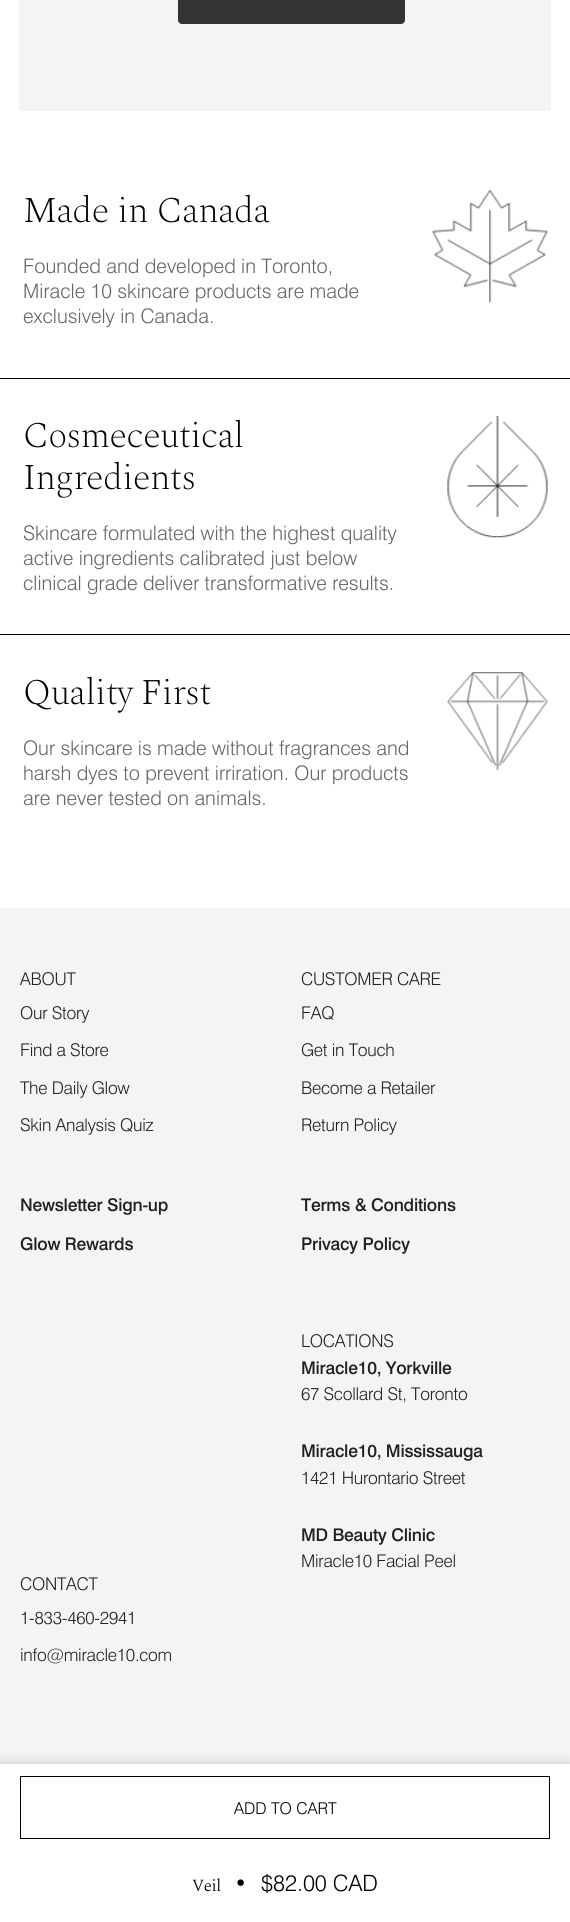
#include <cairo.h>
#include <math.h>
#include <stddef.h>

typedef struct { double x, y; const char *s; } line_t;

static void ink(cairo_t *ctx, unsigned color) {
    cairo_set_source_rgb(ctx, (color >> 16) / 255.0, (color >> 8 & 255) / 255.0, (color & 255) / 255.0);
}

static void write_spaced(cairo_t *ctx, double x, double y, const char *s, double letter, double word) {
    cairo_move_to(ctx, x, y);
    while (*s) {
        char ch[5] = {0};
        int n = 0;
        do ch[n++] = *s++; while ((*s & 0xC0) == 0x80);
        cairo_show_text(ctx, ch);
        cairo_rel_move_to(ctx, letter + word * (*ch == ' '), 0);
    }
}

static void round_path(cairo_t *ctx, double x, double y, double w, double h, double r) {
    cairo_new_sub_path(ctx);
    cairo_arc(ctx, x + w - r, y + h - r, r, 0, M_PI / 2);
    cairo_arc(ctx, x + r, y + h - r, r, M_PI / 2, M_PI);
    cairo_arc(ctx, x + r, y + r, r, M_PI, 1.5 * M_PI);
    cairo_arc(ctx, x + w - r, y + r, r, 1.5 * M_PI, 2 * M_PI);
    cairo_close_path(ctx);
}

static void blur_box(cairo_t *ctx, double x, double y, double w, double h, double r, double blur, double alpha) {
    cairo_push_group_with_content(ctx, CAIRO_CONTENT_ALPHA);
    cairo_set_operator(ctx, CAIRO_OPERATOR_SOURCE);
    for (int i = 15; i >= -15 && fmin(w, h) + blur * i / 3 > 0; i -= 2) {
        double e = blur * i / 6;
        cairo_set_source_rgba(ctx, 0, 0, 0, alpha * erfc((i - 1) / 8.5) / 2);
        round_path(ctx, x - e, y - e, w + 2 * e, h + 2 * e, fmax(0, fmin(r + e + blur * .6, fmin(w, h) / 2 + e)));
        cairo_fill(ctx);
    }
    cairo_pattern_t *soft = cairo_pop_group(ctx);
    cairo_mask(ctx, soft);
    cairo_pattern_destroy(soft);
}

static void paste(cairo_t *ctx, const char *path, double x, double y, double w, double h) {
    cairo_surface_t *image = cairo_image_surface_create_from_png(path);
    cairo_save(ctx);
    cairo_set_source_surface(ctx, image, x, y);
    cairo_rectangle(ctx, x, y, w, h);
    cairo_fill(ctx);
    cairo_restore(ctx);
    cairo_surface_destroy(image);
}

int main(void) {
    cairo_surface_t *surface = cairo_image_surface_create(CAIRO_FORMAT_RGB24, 570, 1922);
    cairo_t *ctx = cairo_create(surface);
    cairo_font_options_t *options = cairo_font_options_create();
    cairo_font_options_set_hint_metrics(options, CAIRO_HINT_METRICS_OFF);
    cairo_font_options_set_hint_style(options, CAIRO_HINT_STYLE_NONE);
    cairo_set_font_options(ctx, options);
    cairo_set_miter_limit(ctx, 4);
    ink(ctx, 0xFFFFFF);
    cairo_paint(ctx);
    ink(ctx, 0xF4F4F4);
    cairo_rectangle(ctx, 19, 0, 532, 111);
    cairo_fill(ctx);
    ink(ctx, 0x333333);
    round_path(ctx, 178.5, -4.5, 226, 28, 3.5);
    cairo_fill_preserve(ctx);
    cairo_set_line_width(ctx, 1);
    cairo_stroke(ctx);
    ink(ctx, 0x000000);
    cairo_rectangle(ctx, 0, 378, 570, 1);
    cairo_fill(ctx);
    cairo_select_font_face(ctx, "Spectral ExtraLight", CAIRO_FONT_SLANT_NORMAL, CAIRO_FONT_WEIGHT_NORMAL);
    cairo_set_font_size(ctx, 36.25);
    write_spaced(ctx, 23, 222, "Made in Canada", -0.4, 0);
    cairo_select_font_face(ctx, "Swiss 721 Light", CAIRO_FONT_SLANT_NORMAL, CAIRO_FONT_WEIGHT_NORMAL);
    cairo_set_font_size(ctx, 20);
    ink(ctx, 0x666666);
    {
        static const line_t items[] = {
            {23, 273, "Founded and developed in Toronto,"},
            {23, 298, "Miracle 10 skincare products are made"},
            {23, 323, "exclusively in Canada."},
        };
        for (size_t i = 0; i < sizeof items / sizeof *items; i++) {
            cairo_move_to(ctx, items[i].x, items[i].y);
            cairo_show_text(ctx, items[i].s);
        }
    }
    paste(ctx, "media/1.png", 432, 189, 116, 114);
    ink(ctx, 0x000000);
    cairo_rectangle(ctx, 0, 634, 570, 1);
    cairo_fill(ctx);
    cairo_select_font_face(ctx, "Spectral ExtraLight", CAIRO_FONT_SLANT_NORMAL, CAIRO_FONT_WEIGHT_NORMAL);
    cairo_set_font_size(ctx, 36.25);
    write_spaced(ctx, 23, 447, "Cosmeceutical", -0.4, 0);
    write_spaced(ctx, 23, 489, "Ingredients", -0.4, 0);
    cairo_select_font_face(ctx, "Swiss 721 Light", CAIRO_FONT_SLANT_NORMAL, CAIRO_FONT_WEIGHT_NORMAL);
    cairo_set_font_size(ctx, 20);
    ink(ctx, 0x666666);
    {
        static const line_t items[] = {
            {23, 540, "Skincare formulated with the highest quality"},
            {23, 565, "active ingredients calibrated just below"},
            {23, 590, "clinical grade deliver transformative results."},
        };
        for (size_t i = 0; i < sizeof items / sizeof *items; i++) {
            cairo_move_to(ctx, items[i].x, items[i].y);
            cairo_show_text(ctx, items[i].s);
        }
    }
    paste(ctx, "media/2.png", 447, 416, 101, 122);
    cairo_select_font_face(ctx, "Spectral ExtraLight", CAIRO_FONT_SLANT_NORMAL, CAIRO_FONT_WEIGHT_NORMAL);
    cairo_set_font_size(ctx, 36.25);
    ink(ctx, 0x000000);
    write_spaced(ctx, 23, 704, "Quality First", -0.4, 0);
    cairo_select_font_face(ctx, "Swiss 721 Light", CAIRO_FONT_SLANT_NORMAL, CAIRO_FONT_WEIGHT_NORMAL);
    cairo_set_font_size(ctx, 20);
    ink(ctx, 0x666666);
    {
        static const line_t items[] = {
            {23, 755, "Our skincare is made without fragrances and"},
            {23, 780, "harsh dyes to prevent irriration. Our products"},
            {23, 805, "are never tested on animals."},
        };
        for (size_t i = 0; i < sizeof items / sizeof *items; i++) {
            cairo_move_to(ctx, items[i].x, items[i].y);
            cairo_show_text(ctx, items[i].s);
        }
    }
    paste(ctx, "media/3.png", 447, 672, 101, 99);
    ink(ctx, 0xF4F4F4);
    cairo_rectangle(ctx, 0, 908, 570, 856);
    cairo_fill(ctx);
    ink(ctx, 0x000000);
    blur_box(ctx, 0, 1764, 570, 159, 0, 6, 0.2);
    ink(ctx, 0xFFFFFF);
    cairo_rectangle(ctx, 0, 1764, 570, 158);
    cairo_fill(ctx);
    cairo_rectangle(ctx, 20.5, 1776.5, 529, 62);
    ink(ctx, 0x000000);
    cairo_stroke(ctx);
    cairo_set_font_size(ctx, 16.25);
    cairo_move_to(ctx, 234, 1814);
    cairo_show_text(ctx, "ADD TO CART");
    cairo_select_font_face(ctx, "Spectral Light", CAIRO_FONT_SLANT_NORMAL, CAIRO_FONT_WEIGHT_NORMAL);
    cairo_set_font_size(ctx, 17);
    write_spaced(ctx, 192, 1891, "Veil", -0.5, 0);
    cairo_select_font_face(ctx, "Swiss 721 Light", CAIRO_FONT_SLANT_NORMAL, CAIRO_FONT_WEIGHT_NORMAL);
    cairo_set_font_size(ctx, 22.5);
    cairo_move_to(ctx, 234, 1891);
    cairo_show_text(ctx, "•");
    cairo_move_to(ctx, 261, 1891);
    cairo_show_text(ctx, "$82.00 CAD");
    cairo_set_font_size(ctx, 17.5);
    ink(ctx, 0x212121);
    {
        static const line_t items[] = {
            {20, 985, "ABOUT"},
            {20, 1019, "Our Story"},
            {20, 1056, "Find a Store"},
            {20, 1094, "The Daily Glow"},
            {20, 1131, "Skin Analysis Quiz"},
        };
        for (size_t i = 0; i < sizeof items / sizeof *items; i++) {
            write_spaced(ctx, items[i].x, items[i].y, items[i].s, -0.25, 0);
        }
    }
    cairo_select_font_face(ctx, "Swiss 721 Medium", CAIRO_FONT_SLANT_NORMAL, CAIRO_FONT_WEIGHT_NORMAL);
    write_spaced(ctx, 20, 1211, "Newsletter Sign-up", -0.25, 0);
    write_spaced(ctx, 20, 1250, "Glow Rewards", -0.25, 0);
    cairo_select_font_face(ctx, "Swiss 721 Light", CAIRO_FONT_SLANT_NORMAL, CAIRO_FONT_WEIGHT_NORMAL);
    {
        static const line_t items[] = {
            {301, 985, "CUSTOMER CARE"},
            {301, 1019, "FAQ"},
            {301, 1056, "Get in Touch"},
            {301, 1094, "Become a Retailer"},
            {301, 1131, "Return Policy"},
        };
        for (size_t i = 0; i < sizeof items / sizeof *items; i++) {
            write_spaced(ctx, items[i].x, items[i].y, items[i].s, -0.25, 0);
        }
    }
    cairo_select_font_face(ctx, "Swiss 721 Medium", CAIRO_FONT_SLANT_NORMAL, CAIRO_FONT_WEIGHT_NORMAL);
    write_spaced(ctx, 301, 1211, "Terms & Conditions", -0.25, 0);
    write_spaced(ctx, 301, 1250, "Privacy Policy", -0.25, 0);
    cairo_select_font_face(ctx, "Swiss 721 Light", CAIRO_FONT_SLANT_NORMAL, CAIRO_FONT_WEIGHT_NORMAL);
    write_spaced(ctx, 301, 1347, "LOCATIONS", -0.25, 0);
    cairo_select_font_face(ctx, "Swiss 721 Medium", CAIRO_FONT_SLANT_NORMAL, CAIRO_FONT_WEIGHT_NORMAL);
    write_spaced(ctx, 301, 1374, "Miracle10, Yorkville", -0.25, 0);
    cairo_select_font_face(ctx, "Swiss 721 Light", CAIRO_FONT_SLANT_NORMAL, CAIRO_FONT_WEIGHT_NORMAL);
    write_spaced(ctx, 301, 1400, "67 Scollard St, Toronto", -0.25, 0);
    cairo_select_font_face(ctx, "Swiss 721 Medium", CAIRO_FONT_SLANT_NORMAL, CAIRO_FONT_WEIGHT_NORMAL);
    write_spaced(ctx, 301, 1457, "Miracle10, Mississauga", -0.25, 0);
    cairo_select_font_face(ctx, "Swiss 721 Light", CAIRO_FONT_SLANT_NORMAL, CAIRO_FONT_WEIGHT_NORMAL);
    write_spaced(ctx, 301, 1484, "1421 Hurontario Street", -0.25, 0);
    cairo_select_font_face(ctx, "Swiss 721 Medium", CAIRO_FONT_SLANT_NORMAL, CAIRO_FONT_WEIGHT_NORMAL);
    write_spaced(ctx, 301, 1541, "MD Beauty Clinic", -0.25, 0);
    cairo_select_font_face(ctx, "Swiss 721 Light", CAIRO_FONT_SLANT_NORMAL, CAIRO_FONT_WEIGHT_NORMAL);
    {
        static const line_t items[] = {
            {301, 1567, "Miracle10 Facial Peel"},
            {20, 1590, "CONTACT"},
            {20, 1624, "1-833-460-2941"},
            {20, 1661, "info@miracle10.com"},
        };
        for (size_t i = 0; i < sizeof items / sizeof *items; i++) {
            write_spaced(ctx, items[i].x, items[i].y, items[i].s, -0.25, 0);
        }
    }
    cairo_surface_write_to_png(surface, "image.png");
    cairo_font_options_destroy(options);
    cairo_destroy(ctx);
    cairo_surface_destroy(surface);
    return 0;
}
